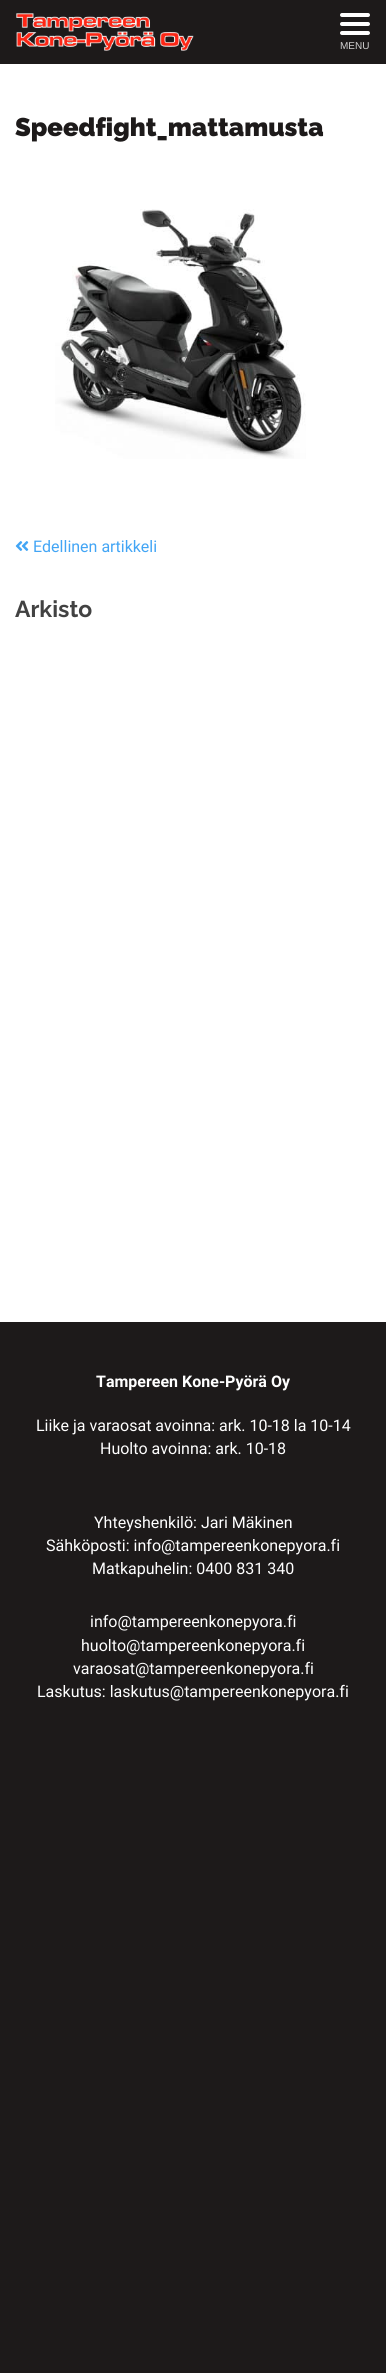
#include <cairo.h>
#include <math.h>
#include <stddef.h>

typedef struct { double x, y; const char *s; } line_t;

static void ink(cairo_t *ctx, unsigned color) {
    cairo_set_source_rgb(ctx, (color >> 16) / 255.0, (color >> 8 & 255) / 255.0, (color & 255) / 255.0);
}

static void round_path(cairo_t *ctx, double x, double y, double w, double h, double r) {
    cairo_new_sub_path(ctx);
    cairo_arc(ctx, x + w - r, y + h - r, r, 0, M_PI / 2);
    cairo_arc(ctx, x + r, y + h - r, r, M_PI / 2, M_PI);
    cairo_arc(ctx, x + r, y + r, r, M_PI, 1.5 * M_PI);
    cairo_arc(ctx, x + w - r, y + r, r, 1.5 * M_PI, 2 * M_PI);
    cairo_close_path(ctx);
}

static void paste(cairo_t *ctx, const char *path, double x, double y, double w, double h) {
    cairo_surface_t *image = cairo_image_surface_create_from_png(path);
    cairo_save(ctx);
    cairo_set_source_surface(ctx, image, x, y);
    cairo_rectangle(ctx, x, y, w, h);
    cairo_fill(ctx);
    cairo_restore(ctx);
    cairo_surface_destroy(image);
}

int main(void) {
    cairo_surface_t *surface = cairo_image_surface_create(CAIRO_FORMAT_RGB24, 386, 2373);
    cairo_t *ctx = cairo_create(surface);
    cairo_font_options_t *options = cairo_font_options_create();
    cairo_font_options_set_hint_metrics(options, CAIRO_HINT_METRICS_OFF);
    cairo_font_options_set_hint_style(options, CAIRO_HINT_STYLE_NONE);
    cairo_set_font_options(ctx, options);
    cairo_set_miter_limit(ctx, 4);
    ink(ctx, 0xFFFFFF);
    cairo_paint(ctx);
    ink(ctx, 0x1D1A1A);
    cairo_rectangle(ctx, 0, 0, 386, 64);
    cairo_fill(ctx);
    paste(ctx, "media/1.png", 16, 13, 178, 38);
    ink(ctx, 0xFFFFFF);
    round_path(ctx, 340, 13, 30, 4, 2);
    cairo_fill(ctx);
    round_path(ctx, 340, 22, 30, 4, 2);
    cairo_fill(ctx);
    round_path(ctx, 340, 31, 30, 4, 2);
    cairo_fill(ctx);
    cairo_select_font_face(ctx, "Liberation Sans", CAIRO_FONT_SLANT_NORMAL, CAIRO_FONT_WEIGHT_NORMAL);
    cairo_set_font_size(ctx, 10);
    ink(ctx, 0xD2D1D1);
    cairo_move_to(ctx, 340, 49);
    cairo_show_text(ctx, "MENU");
    cairo_select_font_face(ctx, "Raleway Thin", CAIRO_FONT_SLANT_NORMAL, CAIRO_FONT_WEIGHT_NORMAL);
    cairo_set_font_size(ctx, 25.6);
    ink(ctx, 0x1D1A1A);
    cairo_move_to(ctx, 15, 136);
    cairo_show_text(ctx, "Speedfight_mattamusta");
    paste(ctx, "media/2.png", 55, 209, 251, 250);
    paste(ctx, "media/3.png", 15, 541, 14, 10);
    cairo_select_font_face(ctx, "Roboto", CAIRO_FONT_SLANT_NORMAL, CAIRO_FONT_WEIGHT_NORMAL);
    cairo_set_font_size(ctx, 16);
    ink(ctx, 0x42A5F5);
    cairo_move_to(ctx, 33, 552);
    cairo_show_text(ctx, "Edellinen artikkeli");
    cairo_select_font_face(ctx, "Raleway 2 Thin", CAIRO_FONT_SLANT_NORMAL, CAIRO_FONT_WEIGHT_NORMAL);
    cairo_set_font_size(ctx, 23);
    ink(ctx, 0x424242);
    cairo_move_to(ctx, 15, 617);
    cairo_show_text(ctx, "Arkisto");
    ink(ctx, 0x1D1A1A);
    cairo_rectangle(ctx, 0, 1322, 386, 1051);
    cairo_fill(ctx);
    cairo_select_font_face(ctx, "Roboto", CAIRO_FONT_SLANT_NORMAL, CAIRO_FONT_WEIGHT_BOLD);
    cairo_set_font_size(ctx, 16);
    ink(ctx, 0xFFFFFF);
    cairo_move_to(ctx, 96, 1387);
    cairo_show_text(ctx, "Tampereen Kone-Pyörä Oy");
    cairo_select_font_face(ctx, "Roboto", CAIRO_FONT_SLANT_NORMAL, CAIRO_FONT_WEIGHT_NORMAL);
    {
        static const line_t items[] = {
            {36, 1431, "Liike ja varaosat avoinna: ark. 10-18 la 10-14"},
            {100, 1454, "Huolto avoinna: ark. 10-18"},
            {94, 1528, "Yhteyshenkilö: Jari Mäkinen"},
            {46, 1551, "Sähköposti: info@tampereenkonepyora.fi"},
            {92, 1574, "Matkapuhelin: 0400 831 340"},
            {90, 1627, "info@tampereenkonepyora.fi"},
            {81, 1651, "huolto@tampereenkonepyora.fi"},
            {73, 1674, "varaosat@tampereenkonepyora.fi"},
            {37, 1697, "Laskutus: laskutus@tampereenkonepyora.fi"},
        };
        for (size_t i = 0; i < sizeof items / sizeof *items; i++) {
            cairo_move_to(ctx, items[i].x, items[i].y);
            cairo_show_text(ctx, items[i].s);
        }
    }
    cairo_surface_write_to_png(surface, "image.png");
    cairo_font_options_destroy(options);
    cairo_destroy(ctx);
    cairo_surface_destroy(surface);
    return 0;
}
